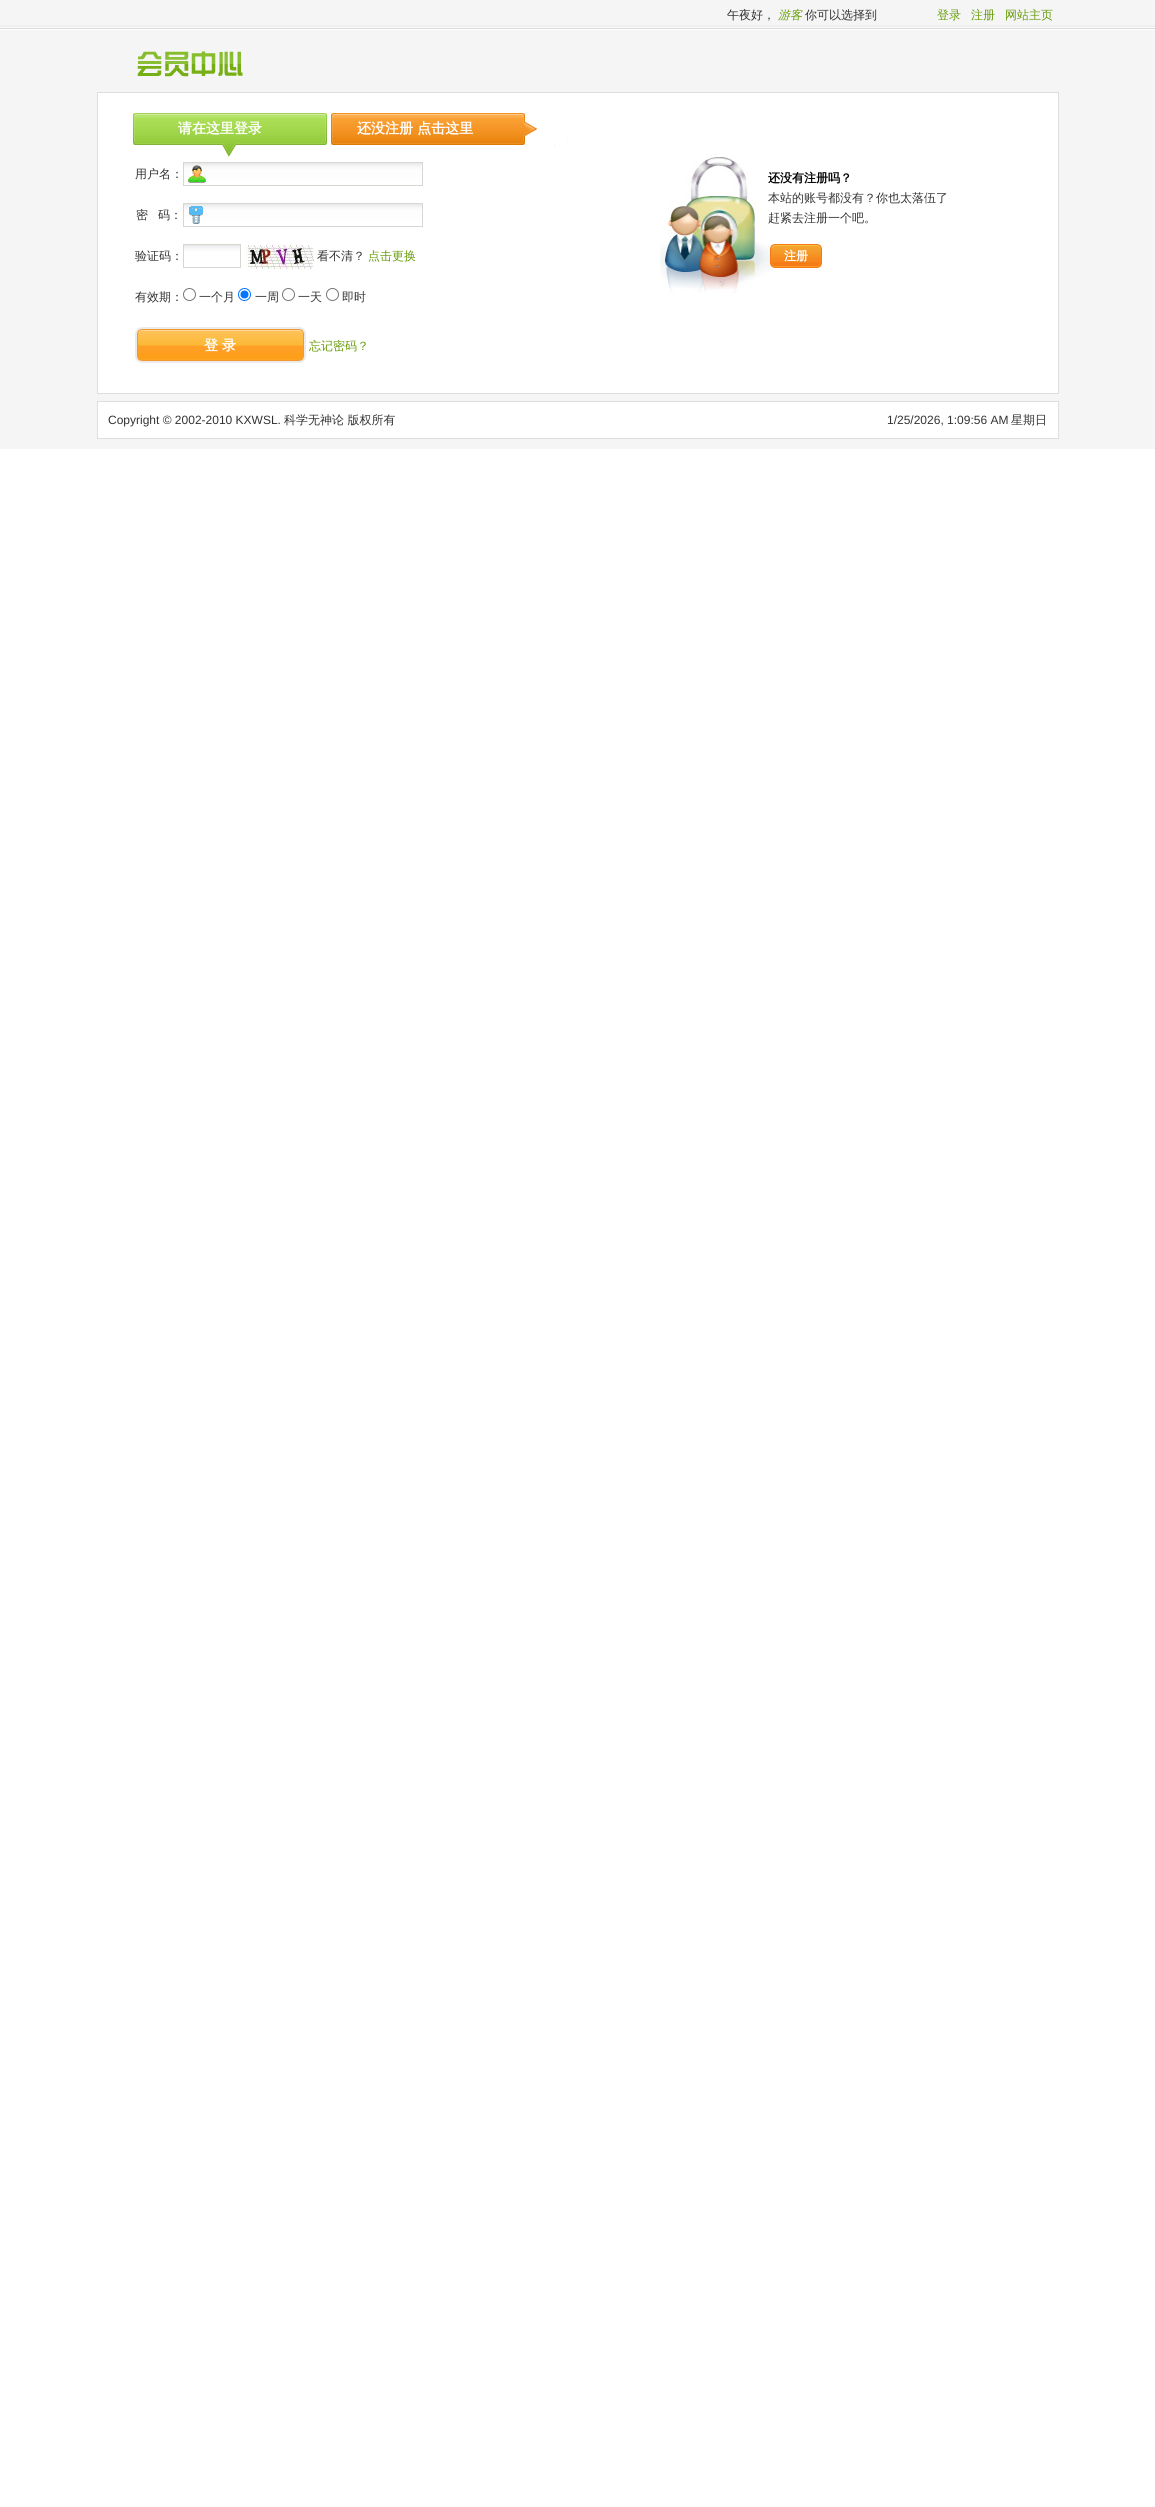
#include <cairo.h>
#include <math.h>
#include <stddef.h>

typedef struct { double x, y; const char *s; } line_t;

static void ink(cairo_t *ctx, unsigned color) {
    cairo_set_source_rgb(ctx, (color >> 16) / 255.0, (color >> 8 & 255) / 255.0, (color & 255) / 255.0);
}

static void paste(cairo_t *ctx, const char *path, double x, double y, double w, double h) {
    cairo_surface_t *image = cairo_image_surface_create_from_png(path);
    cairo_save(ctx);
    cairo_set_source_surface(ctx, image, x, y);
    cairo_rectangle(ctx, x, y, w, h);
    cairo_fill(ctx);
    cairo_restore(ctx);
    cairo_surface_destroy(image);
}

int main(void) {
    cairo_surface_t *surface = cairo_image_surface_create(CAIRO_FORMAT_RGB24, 1155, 2507);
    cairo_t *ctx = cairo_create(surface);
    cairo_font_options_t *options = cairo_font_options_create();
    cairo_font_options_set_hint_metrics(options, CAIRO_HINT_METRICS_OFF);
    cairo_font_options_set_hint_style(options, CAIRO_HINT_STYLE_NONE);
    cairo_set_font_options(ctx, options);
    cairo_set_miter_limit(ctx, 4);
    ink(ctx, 0xFFFFFF);
    cairo_paint(ctx);
    ink(ctx, 0xF5F5F5);
    cairo_rectangle(ctx, 0, 0, 1155, 449);
    cairo_fill(ctx);
    paste(ctx, "media/1.png", 0, 25, 1155, 5);
    cairo_select_font_face(ctx, "WenQuanYi Zen Hei Medium", CAIRO_FONT_SLANT_NORMAL, CAIRO_FONT_WEIGHT_NORMAL);
    cairo_set_font_size(ctx, 12);
    ink(ctx, 0x333333);
    cairo_move_to(ctx, 727, 19);
    cairo_show_text(ctx, "午夜好，");
    cairo_select_font_face(ctx, "WenQuanYi Zen Hei Medium", CAIRO_FONT_SLANT_ITALIC, CAIRO_FONT_WEIGHT_NORMAL);
    ink(ctx, 0x679C0A);
    cairo_move_to(ctx, 778, 19);
    cairo_show_text(ctx, "游客");
    cairo_select_font_face(ctx, "WenQuanYi Zen Hei Medium", CAIRO_FONT_SLANT_NORMAL, CAIRO_FONT_WEIGHT_NORMAL);
    ink(ctx, 0x333333);
    cairo_move_to(ctx, 805, 19);
    cairo_show_text(ctx, "你可以选择到");
    ink(ctx, 0x679C0A);
    {
        static const line_t items[] = {
            {937, 19, "登录"},
            {971, 19, "注册"},
            {1005, 19, "网站主页"},
        };
        for (size_t i = 0; i < sizeof items / sizeof *items; i++) {
            cairo_move_to(ctx, items[i].x, items[i].y);
            cairo_show_text(ctx, items[i].s);
        }
    }
    paste(ctx, "media/2.png", 137, 51, 106, 26);
    ink(ctx, 0xFFFFFF);
    cairo_rectangle(ctx, 97.5, 92.5, 961, 301);
    cairo_fill_preserve(ctx);
    ink(ctx, 0xDFDDDD);
    cairo_set_line_width(ctx, 1);
    cairo_stroke(ctx);
    paste(ctx, "media/3.png", 133, 113, 435, 44);
    cairo_select_font_face(ctx, "WenQuanYi Zen Hei", CAIRO_FONT_SLANT_NORMAL, CAIRO_FONT_WEIGHT_BOLD);
    cairo_set_font_size(ctx, 14);
    ink(ctx, 0xFFFFFF);
    cairo_move_to(ctx, 178, 133);
    cairo_show_text(ctx, "请在这里登录");
    cairo_move_to(ctx, 357, 133);
    cairo_show_text(ctx, "还没注册 点击这里");
    cairo_select_font_face(ctx, "WenQuanYi Zen Hei Medium", CAIRO_FONT_SLANT_NORMAL, CAIRO_FONT_WEIGHT_NORMAL);
    cairo_set_font_size(ctx, 12);
    ink(ctx, 0x333333);
    cairo_move_to(ctx, 135, 178);
    cairo_show_text(ctx, "用户名：");
    paste(ctx, "media/4.png", 184, 163, 238, 20);
    cairo_rectangle(ctx, 183.5, 162.5, 239, 23);
    ink(ctx, 0xD5D8D1);
    cairo_stroke(ctx);
    ink(ctx, 0x333333);
    cairo_move_to(ctx, 136, 219);
    cairo_show_text(ctx, "密");
    cairo_move_to(ctx, 158, 219);
    cairo_show_text(ctx, "码：");
    paste(ctx, "media/5.png", 184, 204, 238, 20);
    cairo_rectangle(ctx, 183.5, 203.5, 239, 23);
    ink(ctx, 0xD5D8D1);
    cairo_stroke(ctx);
    ink(ctx, 0x333333);
    cairo_move_to(ctx, 135, 260);
    cairo_show_text(ctx, "验证码：");
    paste(ctx, "media/6.png", 184, 245, 56, 6);
    cairo_rectangle(ctx, 183.5, 244.5, 57, 23);
    ink(ctx, 0xD5D8D1);
    cairo_stroke(ctx);
    paste(ctx, "media/7.png", 246, 245, 68, 24);
    ink(ctx, 0x333333);
    cairo_move_to(ctx, 317, 260);
    cairo_show_text(ctx, "看不清？");
    ink(ctx, 0x679C0A);
    cairo_move_to(ctx, 368, 260);
    cairo_show_text(ctx, "点击更换");
    ink(ctx, 0x333333);
    cairo_move_to(ctx, 135, 301);
    cairo_show_text(ctx, "有效期：");
    cairo_new_path(ctx);
    cairo_arc(ctx, 189.5, 294.5, 6, 0, 2 * M_PI);
    ink(ctx, 0x767676);
    cairo_stroke(ctx);
    ink(ctx, 0x333333);
    cairo_move_to(ctx, 199, 301);
    cairo_show_text(ctx, "一个月");
    cairo_new_path(ctx);
    cairo_arc(ctx, 244.5, 294.5, 6, 0, 2 * M_PI);
    ink(ctx, 0x0075FF);
    cairo_stroke(ctx);
    cairo_arc(ctx, 244.5, 294.5, 4, 0, 2 * M_PI);
    cairo_fill(ctx);
    ink(ctx, 0x333333);
    cairo_move_to(ctx, 255, 301);
    cairo_show_text(ctx, "一周");
    cairo_new_path(ctx);
    cairo_arc(ctx, 288.5, 294.5, 6, 0, 2 * M_PI);
    ink(ctx, 0x767676);
    cairo_stroke(ctx);
    ink(ctx, 0x333333);
    cairo_move_to(ctx, 298, 301);
    cairo_show_text(ctx, "一天");
    cairo_new_path(ctx);
    cairo_arc(ctx, 332.5, 294.5, 6, 0, 2 * M_PI);
    ink(ctx, 0x767676);
    cairo_stroke(ctx);
    ink(ctx, 0x333333);
    cairo_move_to(ctx, 342, 301);
    cairo_show_text(ctx, "即时");
    paste(ctx, "media/8.png", 135, 327, 171, 36);
    cairo_select_font_face(ctx, "WenQuanYi Zen Hei", CAIRO_FONT_SLANT_NORMAL, CAIRO_FONT_WEIGHT_BOLD);
    cairo_set_font_size(ctx, 14);
    ink(ctx, 0xFFFFFF);
    cairo_move_to(ctx, 204, 350);
    cairo_show_text(ctx, "登");
    cairo_move_to(ctx, 222, 350);
    cairo_show_text(ctx, "录");
    cairo_select_font_face(ctx, "WenQuanYi Zen Hei Medium", CAIRO_FONT_SLANT_NORMAL, CAIRO_FONT_WEIGHT_NORMAL);
    cairo_set_font_size(ctx, 12);
    ink(ctx, 0x679C0A);
    cairo_move_to(ctx, 309, 350);
    cairo_show_text(ctx, "忘记密码？");
    paste(ctx, "media/9.png", 660, 157, 118, 137);
    cairo_select_font_face(ctx, "WenQuanYi Zen Hei", CAIRO_FONT_SLANT_NORMAL, CAIRO_FONT_WEIGHT_BOLD);
    ink(ctx, 0x000000);
    cairo_move_to(ctx, 768, 182);
    cairo_show_text(ctx, "还没有注册吗？");
    cairo_select_font_face(ctx, "WenQuanYi Zen Hei Medium", CAIRO_FONT_SLANT_NORMAL, CAIRO_FONT_WEIGHT_NORMAL);
    ink(ctx, 0x333333);
    cairo_move_to(ctx, 768, 202);
    cairo_show_text(ctx, "本站的账号都没有？你也太落伍了");
    cairo_move_to(ctx, 768, 222);
    cairo_show_text(ctx, "赶紧去注册一个吧。");
    paste(ctx, "media/10.png", 770, 244, 52, 24);
    cairo_select_font_face(ctx, "WenQuanYi Zen Hei", CAIRO_FONT_SLANT_NORMAL, CAIRO_FONT_WEIGHT_BOLD);
    ink(ctx, 0xFFFFFF);
    cairo_move_to(ctx, 784, 260);
    cairo_show_text(ctx, "注册");
    cairo_rectangle(ctx, 97.5, 401.5, 961, 37);
    cairo_fill_preserve(ctx);
    ink(ctx, 0xDFDDDD);
    cairo_stroke(ctx);
    cairo_select_font_face(ctx, "Liberation Sans", CAIRO_FONT_SLANT_NORMAL, CAIRO_FONT_WEIGHT_NORMAL);
    ink(ctx, 0x333333);
    cairo_move_to(ctx, 108, 424);
    cairo_show_text(ctx, "Copyright © 2002-2010 KXWSL.");
    cairo_select_font_face(ctx, "WenQuanYi Zen Hei Medium", CAIRO_FONT_SLANT_NORMAL, CAIRO_FONT_WEIGHT_NORMAL);
    cairo_move_to(ctx, 284, 424);
    cairo_show_text(ctx, "科学无神论 版权所有");
    cairo_select_font_face(ctx, "Liberation Sans", CAIRO_FONT_SLANT_NORMAL, CAIRO_FONT_WEIGHT_NORMAL);
    cairo_move_to(ctx, 887, 424);
    cairo_show_text(ctx, "1/25/2026, 1:09:56 AM");
    cairo_select_font_face(ctx, "WenQuanYi Zen Hei Medium", CAIRO_FONT_SLANT_NORMAL, CAIRO_FONT_WEIGHT_NORMAL);
    cairo_move_to(ctx, 1011, 424);
    cairo_show_text(ctx, "星期日");
    cairo_surface_write_to_png(surface, "image.png");
    cairo_font_options_destroy(options);
    cairo_destroy(ctx);
    cairo_surface_destroy(surface);
    return 0;
}
